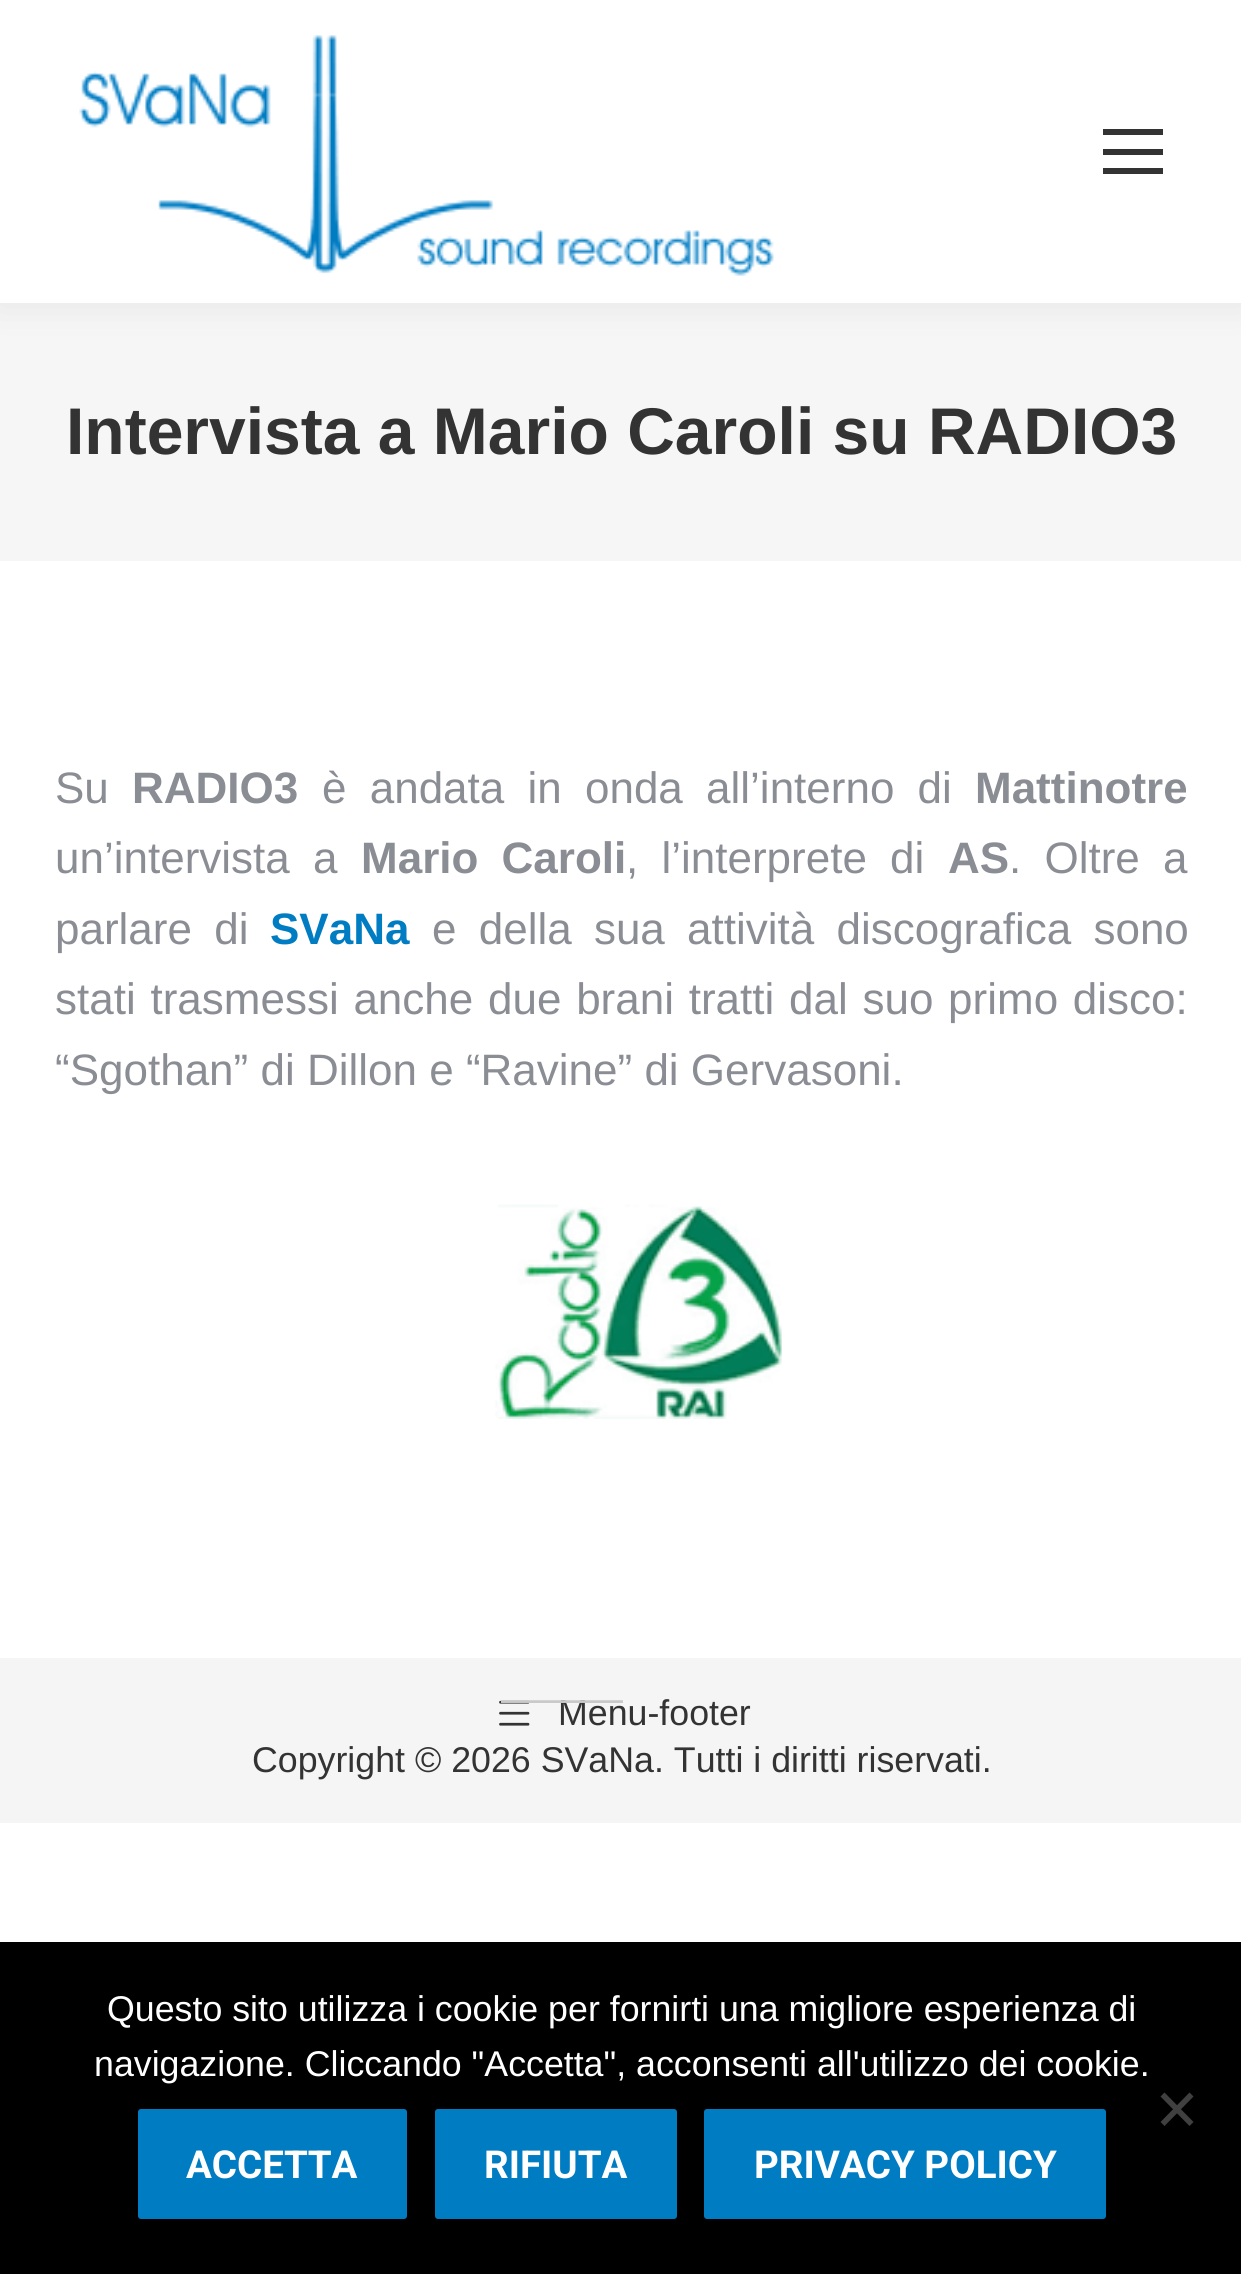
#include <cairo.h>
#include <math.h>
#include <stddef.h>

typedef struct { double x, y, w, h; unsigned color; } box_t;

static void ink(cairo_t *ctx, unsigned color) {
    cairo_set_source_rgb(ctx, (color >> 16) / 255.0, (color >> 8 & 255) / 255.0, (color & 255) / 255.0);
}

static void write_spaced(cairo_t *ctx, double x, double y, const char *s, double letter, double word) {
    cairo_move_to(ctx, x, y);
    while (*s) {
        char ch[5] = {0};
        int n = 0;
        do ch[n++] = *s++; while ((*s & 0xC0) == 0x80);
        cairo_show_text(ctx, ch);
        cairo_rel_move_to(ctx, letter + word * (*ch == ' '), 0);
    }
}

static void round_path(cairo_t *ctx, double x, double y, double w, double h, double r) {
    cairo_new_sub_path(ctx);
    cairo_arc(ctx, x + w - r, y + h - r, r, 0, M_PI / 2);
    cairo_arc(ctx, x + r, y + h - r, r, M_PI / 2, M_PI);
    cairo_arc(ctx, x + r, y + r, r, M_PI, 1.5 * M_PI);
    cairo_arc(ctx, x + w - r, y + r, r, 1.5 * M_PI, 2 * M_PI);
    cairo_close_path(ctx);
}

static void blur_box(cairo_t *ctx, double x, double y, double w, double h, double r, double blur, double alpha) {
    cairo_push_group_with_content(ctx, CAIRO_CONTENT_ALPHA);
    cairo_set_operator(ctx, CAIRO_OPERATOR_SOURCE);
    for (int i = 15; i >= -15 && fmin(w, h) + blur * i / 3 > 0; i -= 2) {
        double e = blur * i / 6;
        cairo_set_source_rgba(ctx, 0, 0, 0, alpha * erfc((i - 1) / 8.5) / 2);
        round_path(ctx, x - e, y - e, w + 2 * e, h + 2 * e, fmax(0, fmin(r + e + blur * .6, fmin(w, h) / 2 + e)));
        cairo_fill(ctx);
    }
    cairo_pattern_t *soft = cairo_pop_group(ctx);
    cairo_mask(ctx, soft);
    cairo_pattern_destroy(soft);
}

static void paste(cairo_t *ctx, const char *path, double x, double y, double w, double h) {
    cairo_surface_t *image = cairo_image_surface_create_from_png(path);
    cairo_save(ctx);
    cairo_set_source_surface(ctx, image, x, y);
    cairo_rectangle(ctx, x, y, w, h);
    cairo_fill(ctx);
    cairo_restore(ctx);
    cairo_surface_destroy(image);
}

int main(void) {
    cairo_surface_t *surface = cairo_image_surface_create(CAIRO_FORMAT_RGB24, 1241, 2274);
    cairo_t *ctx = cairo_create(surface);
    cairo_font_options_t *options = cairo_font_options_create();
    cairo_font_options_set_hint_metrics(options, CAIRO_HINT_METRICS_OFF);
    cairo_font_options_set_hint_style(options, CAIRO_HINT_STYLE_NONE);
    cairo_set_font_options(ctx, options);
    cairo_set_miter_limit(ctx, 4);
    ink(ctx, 0xFFFFFF);
    cairo_paint(ctx);
    ink(ctx, 0xF6F6F6);
    cairo_rectangle(ctx, 0, 303, 1241, 258);
    cairo_fill(ctx);
    ink(ctx, 0x000000);
    blur_box(ctx, -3, -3, 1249, 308, 0, 20.5, 0.07);
    ink(ctx, 0xFFFFFF);
    cairo_rectangle(ctx, 0, 0, 1241, 303);
    cairo_fill(ctx);
    paste(ctx, "media/1.png", 79, 35, 695, 241);
    {
        static const box_t items[] = {
            {1103, 129, 60, 6, 0x333333},
            {1103, 149, 60, 6, 0x333333},
            {1103, 168, 60, 6, 0x333333},
        };
        for (size_t i = 0; i < sizeof items / sizeof *items; i++) {
            ink(ctx, items[i].color);
            cairo_rectangle(ctx, items[i].x, items[i].y, items[i].w, items[i].h);
            cairo_fill(ctx);
        }
    }
    cairo_select_font_face(ctx, "Liberation Sans", CAIRO_FONT_SLANT_NORMAL, CAIRO_FONT_WEIGHT_BOLD);
    cairo_set_font_size(ctx, 66);
    cairo_move_to(ctx, 66, 454);
    cairo_show_text(ctx, "Intervista a Mario Caroli su RADIO3");
    cairo_select_font_face(ctx, "Liberation Sans", CAIRO_FONT_SLANT_NORMAL, CAIRO_FONT_WEIGHT_NORMAL);
    cairo_set_font_size(ctx, 44);
    ink(ctx, 0x8B8D94);
    cairo_move_to(ctx, 55, 803);
    cairo_show_text(ctx, "Su");
    cairo_select_font_face(ctx, "Liberation Sans", CAIRO_FONT_SLANT_NORMAL, CAIRO_FONT_WEIGHT_BOLD);
    cairo_move_to(ctx, 132, 803);
    cairo_show_text(ctx, "RADIO3");
    cairo_select_font_face(ctx, "Liberation Sans", CAIRO_FONT_SLANT_NORMAL, CAIRO_FONT_WEIGHT_NORMAL);
    write_spaced(ctx, 322, 803, "è andata in onda all’interno di", 0, 11);
    cairo_select_font_face(ctx, "Liberation Sans", CAIRO_FONT_SLANT_NORMAL, CAIRO_FONT_WEIGHT_BOLD);
    cairo_move_to(ctx, 975, 803);
    cairo_show_text(ctx, "Mattinotre");
    cairo_select_font_face(ctx, "Liberation Sans", CAIRO_FONT_SLANT_NORMAL, CAIRO_FONT_WEIGHT_NORMAL);
    write_spaced(ctx, 55, 873, "un’intervista a", 0, 11);
    cairo_select_font_face(ctx, "Liberation Sans", CAIRO_FONT_SLANT_NORMAL, CAIRO_FONT_WEIGHT_BOLD);
    write_spaced(ctx, 361, 873, "Mario Caroli", 0, 11);
    cairo_select_font_face(ctx, "Liberation Sans", CAIRO_FONT_SLANT_NORMAL, CAIRO_FONT_WEIGHT_NORMAL);
    write_spaced(ctx, 626, 873, ", l’interprete di", 0, 11);
    cairo_select_font_face(ctx, "Liberation Sans", CAIRO_FONT_SLANT_NORMAL, CAIRO_FONT_WEIGHT_BOLD);
    cairo_move_to(ctx, 948, 873);
    cairo_show_text(ctx, "AS");
    cairo_select_font_face(ctx, "Liberation Sans", CAIRO_FONT_SLANT_NORMAL, CAIRO_FONT_WEIGHT_NORMAL);
    write_spaced(ctx, 1009, 873, ". Oltre a", 0, 11);
    write_spaced(ctx, 55, 944, "parlare di", 0, 10);
    cairo_select_font_face(ctx, "Liberation Sans", CAIRO_FONT_SLANT_NORMAL, CAIRO_FONT_WEIGHT_BOLD);
    ink(ctx, 0x007CC3);
    cairo_move_to(ctx, 270, 944);
    cairo_show_text(ctx, "SVaNa");
    cairo_select_font_face(ctx, "Liberation Sans", CAIRO_FONT_SLANT_NORMAL, CAIRO_FONT_WEIGHT_NORMAL);
    ink(ctx, 0x8B8D94);
    write_spaced(ctx, 432, 944, "e della sua attività discografica sono", 0, 10);
    write_spaced(ctx, 55, 1014, "stati trasmessi anche due brani tratti dal suo primo disco:", 0, 2.5);
    cairo_move_to(ctx, 55, 1085);
    cairo_show_text(ctx, "“Sgothan” di Dillon e “Ravine” di Gervasoni.");
    paste(ctx, "media/2.png", 495, 1204, 287, 215);
    ink(ctx, 0xF5F5F5);
    cairo_rectangle(ctx, 0, 1658, 1241, 165);
    cairo_fill(ctx);
    paste(ctx, "media/3.png", 499, 1700, 31, 26);
    cairo_set_font_size(ctx, 35.75);
    ink(ctx, 0x333333);
    cairo_move_to(ctx, 558, 1725);
    cairo_show_text(ctx, "Menu-footer");
    cairo_save(ctx);
    cairo_rectangle(ctx, 501, 1689, 250, 41);
    cairo_clip(ctx);
    cairo_set_font_size(ctx, 41);
    ink(ctx, 0xC9C9C9);
    cairo_move_to(ctx, 500, 1712);
    cairo_show_text(ctx, "———");
    cairo_restore(ctx);
    cairo_move_to(ctx, 252, 1772);
    cairo_show_text(ctx, "Copyright © 2026 SVaNa. Tutti i diritti riservati.");
    ink(ctx, 0x000000);
    cairo_rectangle(ctx, 0, 1942, 1241, 332);
    cairo_fill(ctx);
    ink(ctx, 0xFFFFFF);
    cairo_move_to(ctx, 107, 2021);
    cairo_show_text(ctx, "Questo sito utilizza i cookie per fornirti una migliore esperienza di");
    cairo_move_to(ctx, 94, 2076);
    cairo_show_text(ctx, "navigazione. Cliccando \"Accetta\", acconsenti all'utilizzo dei cookie.");
    ink(ctx, 0x404040);
    cairo_new_path(ctx);
    cairo_move_to(ctx, 1189.5, 2092.5);
    cairo_line_to(ctx, 1193.5, 2096.5);
    cairo_line_to(ctx, 1164.5, 2126);
    cairo_line_to(ctx, 1160.5, 2122);
    cairo_close_path(ctx);
    cairo_fill(ctx);
    cairo_new_path(ctx);
    cairo_move_to(ctx, 1160.5, 2096.5);
    cairo_line_to(ctx, 1164.5, 2092.5);
    cairo_line_to(ctx, 1193.5, 2122);
    cairo_line_to(ctx, 1189.5, 2126);
    cairo_close_path(ctx);
    cairo_fill(ctx);
    ink(ctx, 0x007CC3);
    round_path(ctx, 138, 2109, 269, 110, 3);
    cairo_fill(ctx);
    cairo_select_font_face(ctx, "Roboto", CAIRO_FONT_SLANT_NORMAL, CAIRO_FONT_WEIGHT_BOLD);
    cairo_set_font_size(ctx, 38.5);
    ink(ctx, 0xFFFFFF);
    cairo_move_to(ctx, 186, 2178);
    cairo_show_text(ctx, "ACCETTA");
    ink(ctx, 0x007CC3);
    round_path(ctx, 435, 2109, 242, 110, 3);
    cairo_fill(ctx);
    ink(ctx, 0xFFFFFF);
    cairo_move_to(ctx, 484, 2178);
    cairo_show_text(ctx, "RIFIUTA");
    ink(ctx, 0x007CC3);
    round_path(ctx, 704, 2109, 402, 110, 3);
    cairo_fill(ctx);
    ink(ctx, 0xFFFFFF);
    cairo_move_to(ctx, 754, 2178);
    cairo_show_text(ctx, "PRIVACY POLICY");
    cairo_surface_write_to_png(surface, "image.png");
    cairo_font_options_destroy(options);
    cairo_destroy(ctx);
    cairo_surface_destroy(surface);
    return 0;
}
